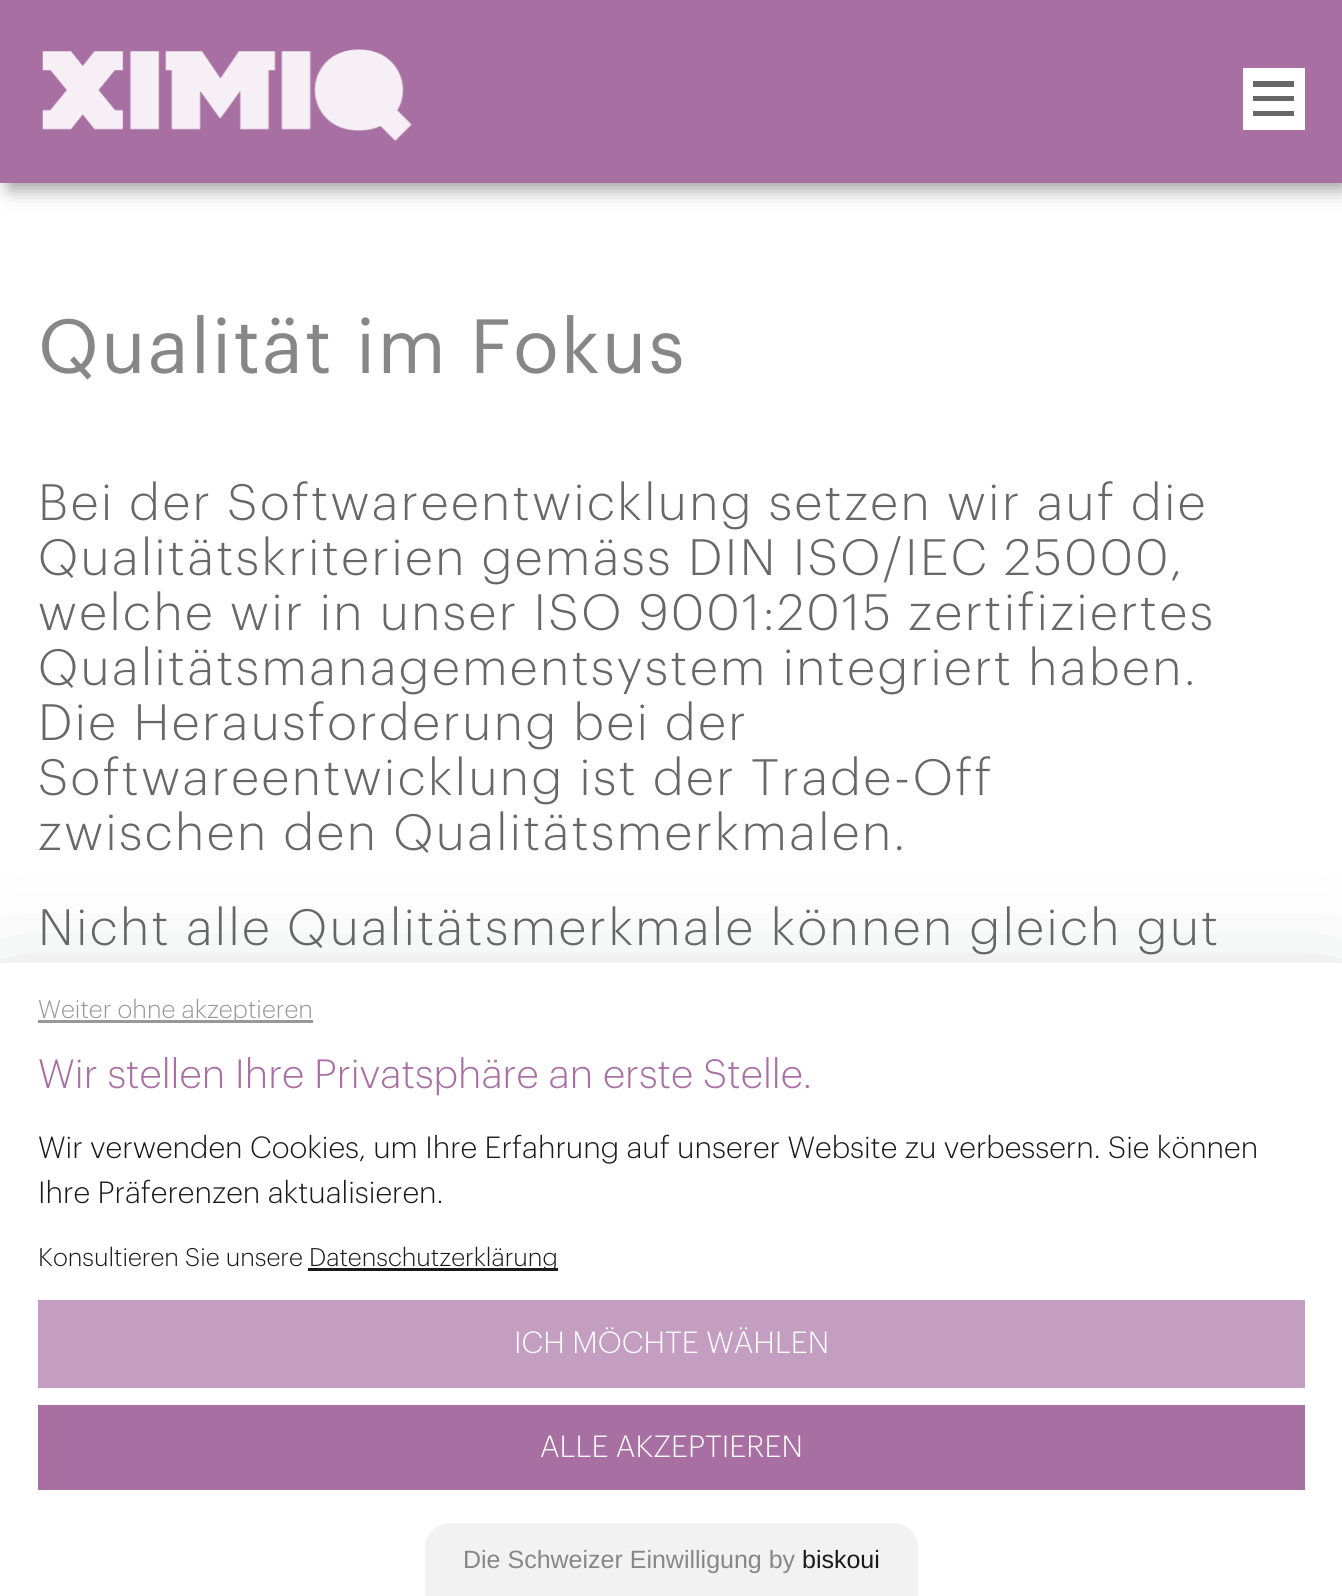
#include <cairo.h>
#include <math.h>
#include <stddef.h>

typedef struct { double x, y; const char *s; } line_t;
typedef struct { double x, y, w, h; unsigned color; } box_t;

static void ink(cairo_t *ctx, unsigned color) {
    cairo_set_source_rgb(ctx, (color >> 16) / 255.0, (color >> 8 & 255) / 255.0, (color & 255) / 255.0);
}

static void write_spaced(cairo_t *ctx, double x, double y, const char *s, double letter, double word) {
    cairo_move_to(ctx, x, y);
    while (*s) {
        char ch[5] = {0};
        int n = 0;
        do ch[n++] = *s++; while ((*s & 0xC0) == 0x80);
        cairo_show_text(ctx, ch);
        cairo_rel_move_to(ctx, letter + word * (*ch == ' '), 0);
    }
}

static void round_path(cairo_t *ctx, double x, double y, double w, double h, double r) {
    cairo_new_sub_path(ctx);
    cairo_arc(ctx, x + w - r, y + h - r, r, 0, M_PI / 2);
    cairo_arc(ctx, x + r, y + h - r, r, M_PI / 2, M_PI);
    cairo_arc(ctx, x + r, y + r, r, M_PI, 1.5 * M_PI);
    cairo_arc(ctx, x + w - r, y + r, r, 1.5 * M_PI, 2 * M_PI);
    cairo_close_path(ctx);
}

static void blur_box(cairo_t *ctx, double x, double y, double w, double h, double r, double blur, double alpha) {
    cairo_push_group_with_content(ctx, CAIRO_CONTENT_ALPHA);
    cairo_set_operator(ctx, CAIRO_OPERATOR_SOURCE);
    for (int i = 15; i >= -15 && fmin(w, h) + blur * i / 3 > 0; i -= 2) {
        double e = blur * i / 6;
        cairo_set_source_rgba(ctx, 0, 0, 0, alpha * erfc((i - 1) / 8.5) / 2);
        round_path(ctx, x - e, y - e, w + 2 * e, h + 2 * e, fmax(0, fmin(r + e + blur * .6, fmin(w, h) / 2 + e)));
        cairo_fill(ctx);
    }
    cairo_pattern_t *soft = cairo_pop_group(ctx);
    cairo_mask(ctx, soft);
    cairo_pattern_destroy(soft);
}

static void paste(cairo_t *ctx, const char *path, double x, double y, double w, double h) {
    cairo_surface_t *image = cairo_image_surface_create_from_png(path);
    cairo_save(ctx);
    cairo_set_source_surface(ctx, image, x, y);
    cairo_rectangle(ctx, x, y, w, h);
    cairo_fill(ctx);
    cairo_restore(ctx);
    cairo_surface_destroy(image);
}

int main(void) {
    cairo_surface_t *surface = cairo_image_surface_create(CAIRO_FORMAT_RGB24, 1342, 1596);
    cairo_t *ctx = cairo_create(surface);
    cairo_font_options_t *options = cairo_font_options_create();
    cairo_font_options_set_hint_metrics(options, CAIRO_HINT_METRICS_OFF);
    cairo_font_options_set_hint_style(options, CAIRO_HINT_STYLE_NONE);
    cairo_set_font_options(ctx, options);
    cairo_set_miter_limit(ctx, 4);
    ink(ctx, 0xFFFFFF);
    cairo_paint(ctx);
    ink(ctx, 0x939393);
    blur_box(ctx, 10, 15, 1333, 173, 0, 10, 1);
    ink(ctx, 0xA86FA2);
    cairo_rectangle(ctx, 0, 0, 1342, 183);
    cairo_fill(ctx);
    paste(ctx, "media/1.png", 42, 49, 370, 92);
    {
        static const box_t items[] = {
            {1243, 68, 62, 62, 0xFFFFFF},
            {1253, 81, 41, 6, 0x676767},
            {1253, 96, 41, 5, 0x676767},
            {1253, 111, 41, 5, 0x676767},
        };
        for (size_t i = 0; i < sizeof items / sizeof *items; i++) {
            ink(ctx, items[i].color);
            cairo_rectangle(ctx, items[i].x, items[i].y, items[i].w, items[i].h);
            cairo_fill(ctx);
        }
    }
    cairo_select_font_face(ctx, "Graphik", CAIRO_FONT_SLANT_NORMAL, CAIRO_FONT_WEIGHT_NORMAL);
    cairo_set_font_size(ctx, 75);
    ink(ctx, 0x878787);
    write_spaced(ctx, 38, 373, "Qualität im Fokus", 2.25, 0);
    cairo_select_font_face(ctx, "Graphik Light", CAIRO_FONT_SLANT_NORMAL, CAIRO_FONT_WEIGHT_NORMAL);
    cairo_set_font_size(ctx, 50);
    ink(ctx, 0x676767);
    {
        static const line_t items[] = {
            {38, 520, "Bei der Softwareentwicklung setzen wir auf die"},
            {38, 575, "Qualitätskriterien gemäss DIN ISO/IEC 25000,"},
            {38, 630, "welche wir in unser ISO 9001:2015 zertifiziertes"},
            {38, 685, "Qualitätsmanagementsystem integriert haben."},
            {38, 740, "Die Herausforderung bei der"},
            {38, 795, "Softwareentwicklung ist der Trade-Off"},
            {38, 850, "zwischen den Qualitätsmerkmalen."},
            {38, 945, "Nicht alle Qualitätsmerkmale können gleich gut"},
        };
        for (size_t i = 0; i < sizeof items / sizeof *items; i++) {
            write_spaced(ctx, items[i].x, items[i].y, items[i].s, 2.5, 0);
        }
    }
    ink(ctx, 0x373B3E);
    blur_box(ctx, 0, 1003, 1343, 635, 0, 60, 0.28);
    ink(ctx, 0xFFFFFF);
    cairo_rectangle(ctx, 0, 963, 1342, 633);
    cairo_fill(ctx);
    ink(ctx, 0x989898);
    cairo_rectangle(ctx, 38, 1020, 275, 3);
    cairo_fill(ctx);
    cairo_set_font_size(ctx, 25);
    cairo_move_to(ctx, 38, 1018);
    cairo_show_text(ctx, "Weiter ohne akzeptieren");
    cairo_set_font_size(ctx, 40);
    ink(ctx, 0xA86FA2);
    cairo_move_to(ctx, 38, 1088);
    cairo_show_text(ctx, "Wir stellen Ihre Privatsphäre an erste Stelle.");
    cairo_set_font_size(ctx, 30);
    ink(ctx, 0x1A1A1A);
    cairo_move_to(ctx, 38, 1158);
    cairo_show_text(ctx, "Wir verwenden Cookies, um Ihre Erfahrung auf unserer Website zu verbessern. Sie können");
    cairo_move_to(ctx, 38, 1203);
    cairo_show_text(ctx, "Ihre Präferenzen aktualisieren.");
    cairo_set_font_size(ctx, 25);
    cairo_move_to(ctx, 38, 1266);
    cairo_show_text(ctx, "Konsultieren Sie unsere");
    cairo_rectangle(ctx, 308, 1268, 250, 3);
    cairo_fill(ctx);
    cairo_move_to(ctx, 309, 1266);
    cairo_show_text(ctx, "Datenschutzerklärung");
    ink(ctx, 0xC49EC0);
    cairo_rectangle(ctx, 38, 1300, 1267, 88);
    cairo_fill(ctx);
    cairo_set_font_size(ctx, 30);
    ink(ctx, 0xFFFFFF);
    cairo_move_to(ctx, 514, 1353);
    cairo_show_text(ctx, "ICH MÖCHTE WÄHLEN");
    ink(ctx, 0xA86FA2);
    cairo_rectangle(ctx, 38, 1405, 1267, 85);
    cairo_fill(ctx);
    ink(ctx, 0xFFFFFF);
    cairo_move_to(ctx, 540, 1457);
    cairo_show_text(ctx, "ALLE AKZEPTIEREN");
    ink(ctx, 0xF2F2F2);
    cairo_new_path(ctx);
    cairo_move_to(ctx, 450, 1523);
    cairo_line_to(ctx, 893, 1523);
    cairo_curve_to(ctx, 907, 1523, 918, 1534, 918, 1548);
    cairo_line_to(ctx, 918, 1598);
    cairo_line_to(ctx, 425, 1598);
    cairo_line_to(ctx, 425, 1548);
    cairo_curve_to(ctx, 425, 1534, 436, 1523, 450, 1523);
    cairo_close_path(ctx);
    cairo_fill(ctx);
    cairo_select_font_face(ctx, "Liberation Sans", CAIRO_FONT_SLANT_NORMAL, CAIRO_FONT_WEIGHT_NORMAL);
    cairo_set_font_size(ctx, 25);
    ink(ctx, 0x878787);
    cairo_move_to(ctx, 463, 1568);
    cairo_show_text(ctx, "Die Schweizer Einwilligung by");
    ink(ctx, 0x1A1A1A);
    cairo_move_to(ctx, 802, 1568);
    cairo_show_text(ctx, "biskoui");
    cairo_surface_write_to_png(surface, "image.png");
    cairo_font_options_destroy(options);
    cairo_destroy(ctx);
    cairo_surface_destroy(surface);
    return 0;
}
